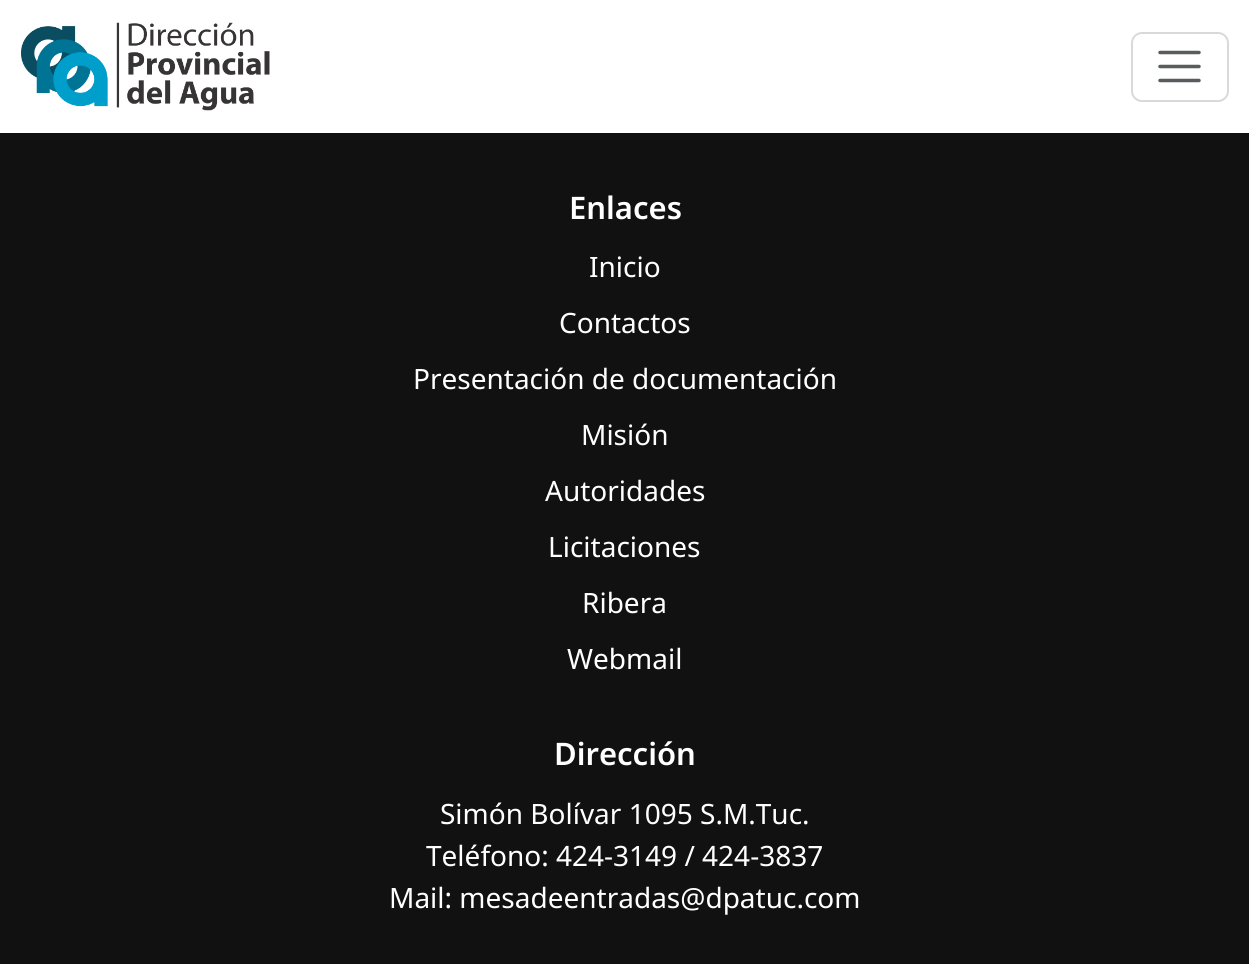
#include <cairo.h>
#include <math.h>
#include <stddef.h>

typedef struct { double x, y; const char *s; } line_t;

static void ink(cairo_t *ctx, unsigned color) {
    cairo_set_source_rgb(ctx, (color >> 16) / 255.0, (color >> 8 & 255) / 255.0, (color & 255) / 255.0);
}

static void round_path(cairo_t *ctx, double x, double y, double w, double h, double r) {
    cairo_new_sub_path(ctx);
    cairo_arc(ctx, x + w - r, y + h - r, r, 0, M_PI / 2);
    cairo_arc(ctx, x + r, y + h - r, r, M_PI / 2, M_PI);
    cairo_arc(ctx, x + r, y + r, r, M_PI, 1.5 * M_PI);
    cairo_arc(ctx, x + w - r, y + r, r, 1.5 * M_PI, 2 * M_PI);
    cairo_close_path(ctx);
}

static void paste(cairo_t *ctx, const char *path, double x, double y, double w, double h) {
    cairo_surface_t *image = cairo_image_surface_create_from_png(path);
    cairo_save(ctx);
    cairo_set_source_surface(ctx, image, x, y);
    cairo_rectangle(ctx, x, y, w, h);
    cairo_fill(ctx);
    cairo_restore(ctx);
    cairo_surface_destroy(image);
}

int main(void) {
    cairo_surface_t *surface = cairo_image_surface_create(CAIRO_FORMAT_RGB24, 1249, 964);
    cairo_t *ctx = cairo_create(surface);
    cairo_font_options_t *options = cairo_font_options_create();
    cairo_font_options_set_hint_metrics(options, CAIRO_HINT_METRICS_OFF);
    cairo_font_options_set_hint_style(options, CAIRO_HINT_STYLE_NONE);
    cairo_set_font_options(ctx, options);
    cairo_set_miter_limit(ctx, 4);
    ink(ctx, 0xFFFFFF);
    cairo_paint(ctx);
    paste(ctx, "media/1.png", 21, 22, 249, 89);
    round_path(ctx, 1132, 33, 96, 68, 10);
    ink(ctx, 0xD9D9D9);
    cairo_stroke(ctx);
    cairo_new_path(ctx);
    cairo_move_to(ctx, 1160, 52.5);
    cairo_line_to(ctx, 1199, 52.5);
    cairo_move_to(ctx, 1160, 66.5);
    cairo_line_to(ctx, 1199, 66.5);
    cairo_move_to(ctx, 1160, 80.5);
    cairo_line_to(ctx, 1199, 80.5);
    ink(ctx, 0x595C5F);
    cairo_set_line_width(ctx, 3.5);
    cairo_set_line_cap(ctx, CAIRO_LINE_CAP_ROUND);
    cairo_stroke(ctx);
    ink(ctx, 0x111111);
    cairo_rectangle(ctx, 0, 133, 1249, 831);
    cairo_fill(ctx);
    cairo_select_font_face(ctx, "Noto Sans SemiBold", CAIRO_FONT_SLANT_NORMAL, CAIRO_FONT_WEIGHT_NORMAL);
    cairo_set_font_size(ctx, 31);
    ink(ctx, 0xFFFFFF);
    cairo_move_to(ctx, 569, 219);
    cairo_show_text(ctx, "Enlaces");
    cairo_select_font_face(ctx, "Noto Sans", CAIRO_FONT_SLANT_NORMAL, CAIRO_FONT_WEIGHT_NORMAL);
    cairo_set_font_size(ctx, 28);
    {
        static const line_t items[] = {
            {589, 277, "Inicio"},
            {559, 333, "Contactos"},
            {413, 389, "Presentación de documentación"},
            {581, 445, "Misión"},
            {545, 501, "Autoridades"},
            {548, 557, "Licitaciones"},
            {582, 613, "Ribera"},
            {567, 669, "Webmail"},
        };
        for (size_t i = 0; i < sizeof items / sizeof *items; i++) {
            cairo_move_to(ctx, items[i].x, items[i].y);
            cairo_show_text(ctx, items[i].s);
        }
    }
    cairo_select_font_face(ctx, "Noto Sans SemiBold", CAIRO_FONT_SLANT_NORMAL, CAIRO_FONT_WEIGHT_NORMAL);
    cairo_set_font_size(ctx, 31);
    cairo_move_to(ctx, 554, 765);
    cairo_show_text(ctx, "Dirección");
    cairo_select_font_face(ctx, "Noto Sans", CAIRO_FONT_SLANT_NORMAL, CAIRO_FONT_WEIGHT_NORMAL);
    cairo_set_font_size(ctx, 28);
    {
        static const line_t items[] = {
            {440, 824, "Simón Bolívar 1095 S.M.Tuc."},
            {426, 866, "Teléfono: 424-3149 / 424-3837"},
            {389, 908, "Mail: mesadeentradas@dpatuc.com"},
        };
        for (size_t i = 0; i < sizeof items / sizeof *items; i++) {
            cairo_move_to(ctx, items[i].x, items[i].y);
            cairo_show_text(ctx, items[i].s);
        }
    }
    cairo_surface_write_to_png(surface, "image.png");
    cairo_font_options_destroy(options);
    cairo_destroy(ctx);
    cairo_surface_destroy(surface);
    return 0;
}
